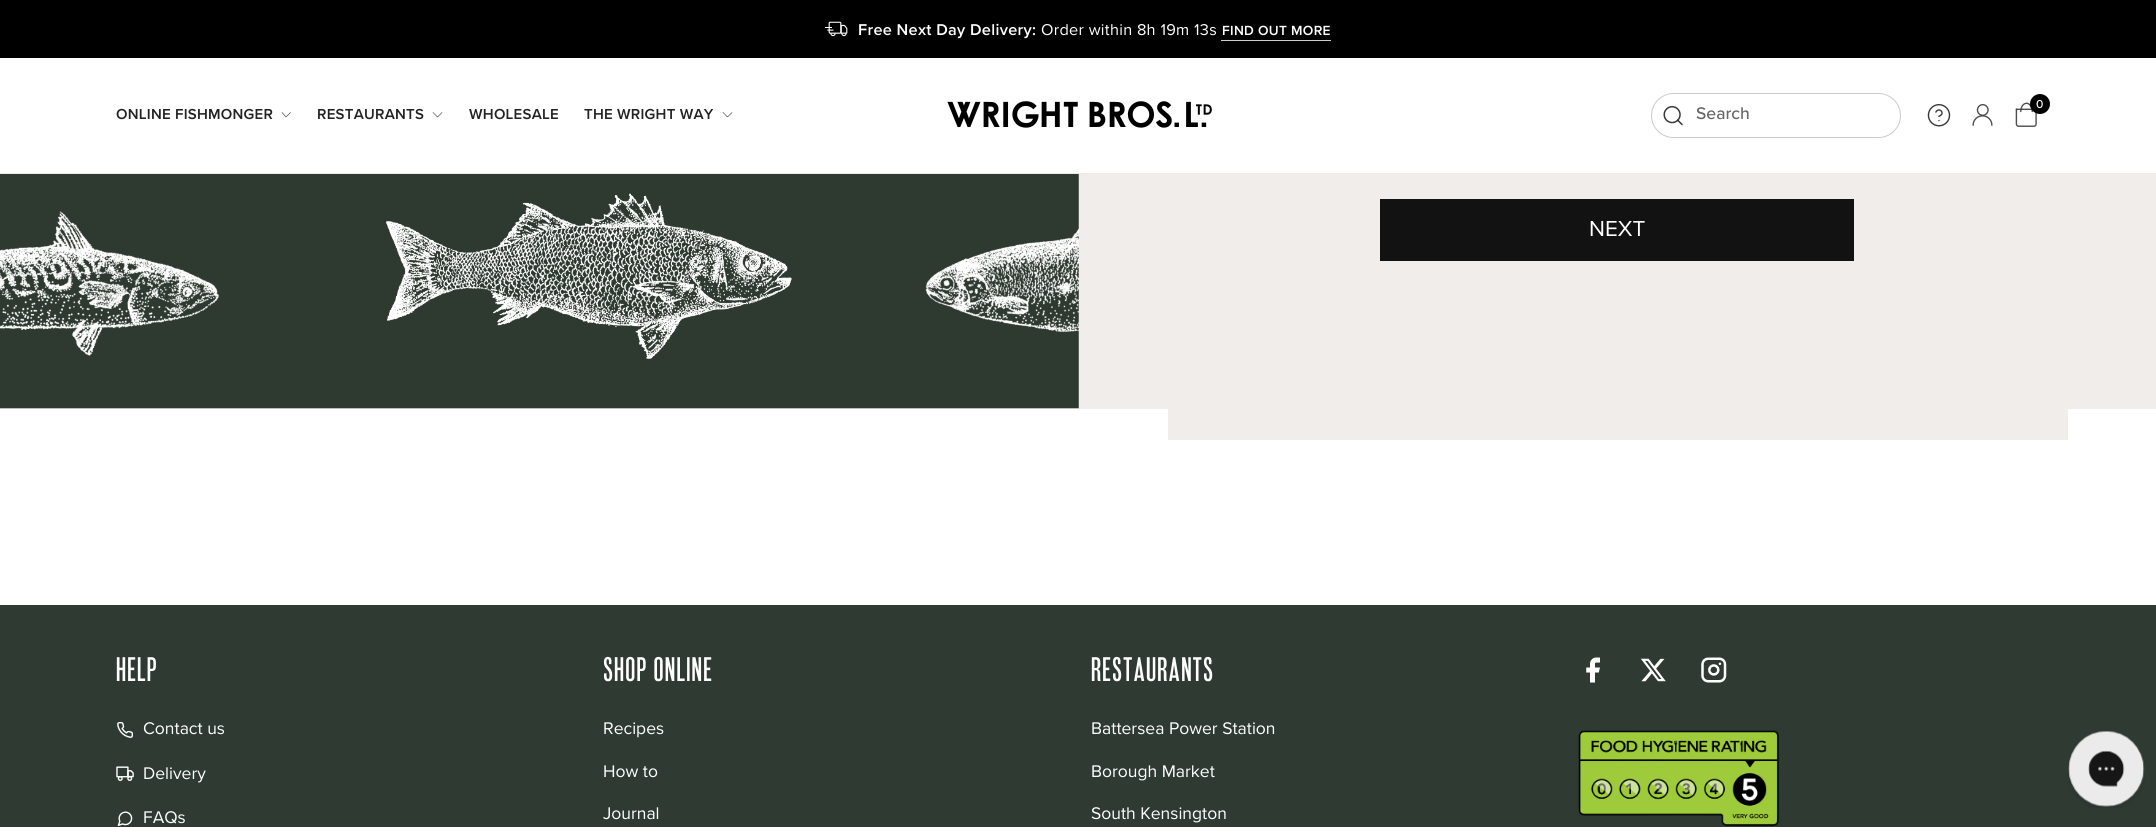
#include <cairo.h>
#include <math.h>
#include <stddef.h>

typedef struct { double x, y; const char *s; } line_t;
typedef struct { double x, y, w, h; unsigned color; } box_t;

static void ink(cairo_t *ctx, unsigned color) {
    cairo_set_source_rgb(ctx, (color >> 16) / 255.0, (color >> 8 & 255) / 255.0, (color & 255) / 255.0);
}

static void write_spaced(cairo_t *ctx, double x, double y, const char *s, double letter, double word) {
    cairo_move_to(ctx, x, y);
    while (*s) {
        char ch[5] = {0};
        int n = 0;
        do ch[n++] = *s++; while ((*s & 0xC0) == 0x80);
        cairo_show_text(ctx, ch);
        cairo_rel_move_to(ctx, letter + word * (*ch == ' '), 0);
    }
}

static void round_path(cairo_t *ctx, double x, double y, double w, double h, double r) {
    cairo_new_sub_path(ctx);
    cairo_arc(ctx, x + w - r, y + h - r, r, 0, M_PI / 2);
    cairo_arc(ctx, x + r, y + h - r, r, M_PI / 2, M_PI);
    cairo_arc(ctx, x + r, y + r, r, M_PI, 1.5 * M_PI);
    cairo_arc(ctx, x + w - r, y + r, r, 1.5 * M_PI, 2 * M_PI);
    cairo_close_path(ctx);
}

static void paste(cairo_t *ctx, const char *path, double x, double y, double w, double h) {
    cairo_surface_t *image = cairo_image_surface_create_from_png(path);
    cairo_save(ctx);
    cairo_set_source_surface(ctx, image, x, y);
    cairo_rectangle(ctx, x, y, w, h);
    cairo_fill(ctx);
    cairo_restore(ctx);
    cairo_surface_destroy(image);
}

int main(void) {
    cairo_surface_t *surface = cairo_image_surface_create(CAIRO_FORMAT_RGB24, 2156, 827);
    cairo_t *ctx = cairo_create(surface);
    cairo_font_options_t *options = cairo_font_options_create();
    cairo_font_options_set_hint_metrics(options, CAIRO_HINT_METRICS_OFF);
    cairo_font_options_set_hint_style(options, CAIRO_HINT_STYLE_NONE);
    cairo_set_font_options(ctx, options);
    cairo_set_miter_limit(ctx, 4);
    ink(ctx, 0xF0EDEB);
    cairo_paint(ctx);
    {
        static const box_t items[] = {
            {0, 58, 2156, 115, 0xFFFFFF},
            {0, 173, 2156, 1, 0xEBEBEB},
            {0, 0, 2156, 58, 0x000000},
        };
        for (size_t i = 0; i < sizeof items / sizeof *items; i++) {
            ink(ctx, items[i].color);
            cairo_rectangle(ctx, items[i].x, items[i].y, items[i].w, items[i].h);
            cairo_fill(ctx);
        }
    }
    paste(ctx, "media/1.png", 825, 21, 23, 16);
    cairo_select_font_face(ctx, "Proxima Nova SemiBold", CAIRO_FONT_SLANT_NORMAL, CAIRO_FONT_WEIGHT_NORMAL);
    cairo_set_font_size(ctx, 16.25);
    ink(ctx, 0xFFFFFF);
    write_spaced(ctx, 858, 35, "Free Next Day Delivery:", 0.3, 0);
    cairo_select_font_face(ctx, "Proxima Nova", CAIRO_FONT_SLANT_NORMAL, CAIRO_FONT_WEIGHT_NORMAL);
    write_spaced(ctx, 1041, 35, "Order within 8h 19m 13s", 0.3, 0);
    cairo_select_font_face(ctx, "Proxima Nova SemiBold", CAIRO_FONT_SLANT_NORMAL, CAIRO_FONT_WEIGHT_NORMAL);
    cairo_set_font_size(ctx, 13.75);
    write_spaced(ctx, 1222, 35, "FIND OUT MORE", 0.3, 0);
    ink(ctx, 0xCFCFCF);
    cairo_rectangle(ctx, 1221, 40, 110, 1);
    cairo_fill(ctx);
    cairo_set_font_size(ctx, 15);
    ink(ctx, 0x222222);
    write_spaced(ctx, 116, 119, "ONLINE FISHMONGER", 0.25, 0);
    cairo_new_path(ctx);
    cairo_move_to(ctx, 282, 112.5);
    cairo_line_to(ctx, 286, 117);
    cairo_line_to(ctx, 290.5, 112.5);
    ink(ctx, 0x383838);
    cairo_set_line_width(ctx, 0.6);
    cairo_set_line_cap(ctx, CAIRO_LINE_CAP_ROUND);
    cairo_set_line_join(ctx, CAIRO_LINE_JOIN_ROUND);
    cairo_stroke(ctx);
    ink(ctx, 0x222222);
    write_spaced(ctx, 317, 119, "RESTAURANTS", 0.25, 0);
    cairo_new_path(ctx);
    cairo_move_to(ctx, 433, 112.5);
    cairo_line_to(ctx, 437.5, 117);
    cairo_line_to(ctx, 442, 112.5);
    ink(ctx, 0x383838);
    cairo_stroke(ctx);
    ink(ctx, 0x222222);
    write_spaced(ctx, 469, 119, "WHOLESALE", 0.25, 0);
    write_spaced(ctx, 584, 119, "THE WRIGHT WAY", 0.25, 0);
    cairo_new_path(ctx);
    cairo_move_to(ctx, 723, 112.5);
    cairo_line_to(ctx, 727.5, 117);
    cairo_line_to(ctx, 732, 112.5);
    ink(ctx, 0x383838);
    cairo_stroke(ctx);
    paste(ctx, "media/2.png", 947, 101, 265, 27);
    paste(ctx, "media/3.png", 1927, 104, 24, 23);
    paste(ctx, "media/4.png", 1972, 104, 21, 22);
    paste(ctx, "media/5.png", 2015, 102, 22, 25);
    ink(ctx, 0x000000);
    cairo_arc(ctx, 2040, 104, 10, 0, 2 * M_PI);
    cairo_fill(ctx);
    cairo_select_font_face(ctx, "Proxima Nova Medium", CAIRO_FONT_SLANT_NORMAL, CAIRO_FONT_WEIGHT_NORMAL);
    cairo_set_font_size(ctx, 12);
    ink(ctx, 0xFFFFFF);
    cairo_move_to(ctx, 2036, 108);
    cairo_show_text(ctx, "0");
    round_path(ctx, 1651.5, 93.5, 249, 44, 22);
    ink(ctx, 0xCCCCCC);
    cairo_set_line_width(ctx, 1);
    cairo_set_line_cap(ctx, CAIRO_LINE_CAP_BUTT);
    cairo_set_line_join(ctx, CAIRO_LINE_JOIN_MITER);
    cairo_stroke(ctx);
    paste(ctx, "media/6.png", 1663, 106, 20, 20);
    cairo_set_font_size(ctx, 17.5);
    ink(ctx, 0x666666);
    cairo_move_to(ctx, 1696, 119);
    cairo_show_text(ctx, "Search");
    paste(ctx, "media/7.png", 0, 174, 1079, 235);
    {
        static const box_t items[] = {
            {0, 409, 2156, 196, 0xFFFFFF},
            {1168, 409, 900, 31, 0xF0EDEB},
            {1380, 199, 474, 62, 0x121212},
        };
        for (size_t i = 0; i < sizeof items / sizeof *items; i++) {
            ink(ctx, items[i].color);
            cairo_rectangle(ctx, items[i].x, items[i].y, items[i].w, items[i].h);
            cairo_fill(ctx);
        }
    }
    cairo_select_font_face(ctx, "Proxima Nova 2", CAIRO_FONT_SLANT_NORMAL, CAIRO_FONT_WEIGHT_NORMAL);
    cairo_set_font_size(ctx, 22.5);
    ink(ctx, 0xFFFFFF);
    cairo_move_to(ctx, 1589, 236);
    cairo_show_text(ctx, "NEXT");
    ink(ctx, 0x2F3A32);
    cairo_rectangle(ctx, 0, 605, 2156, 222);
    cairo_fill(ctx);
    cairo_select_font_face(ctx, "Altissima", CAIRO_FONT_SLANT_NORMAL, CAIRO_FONT_WEIGHT_NORMAL);
    cairo_set_font_size(ctx, 30);
    ink(ctx, 0xFFFFFF);
    write_spaced(ctx, 116, 681, "Help", 1.25, 0);
    paste(ctx, "media/8.png", 117, 722, 16, 16);
    cairo_select_font_face(ctx, "Proxima Nova", CAIRO_FONT_SLANT_NORMAL, CAIRO_FONT_WEIGHT_NORMAL);
    cairo_set_font_size(ctx, 17.5);
    cairo_move_to(ctx, 143, 734);
    cairo_show_text(ctx, "Contact us");
    paste(ctx, "media/9.png", 116, 766, 18, 15);
    cairo_move_to(ctx, 143, 779);
    cairo_show_text(ctx, "Delivery");
    paste(ctx, "media/10.png", 117, 811, 16, 15);
    cairo_move_to(ctx, 143, 823);
    cairo_show_text(ctx, "FAQs");
    cairo_select_font_face(ctx, "Altissima", CAIRO_FONT_SLANT_NORMAL, CAIRO_FONT_WEIGHT_NORMAL);
    cairo_set_font_size(ctx, 30);
    write_spaced(ctx, 603, 681, "Shop online", 1.25, 0);
    cairo_select_font_face(ctx, "Proxima Nova", CAIRO_FONT_SLANT_NORMAL, CAIRO_FONT_WEIGHT_NORMAL);
    cairo_set_font_size(ctx, 17.5);
    {
        static const line_t items[] = {
            {603, 734, "Recipes"},
            {603, 777, "How to"},
            {603, 819, "Journal"},
        };
        for (size_t i = 0; i < sizeof items / sizeof *items; i++) {
            cairo_move_to(ctx, items[i].x, items[i].y);
            cairo_show_text(ctx, items[i].s);
        }
    }
    cairo_select_font_face(ctx, "Altissima", CAIRO_FONT_SLANT_NORMAL, CAIRO_FONT_WEIGHT_NORMAL);
    cairo_set_font_size(ctx, 30);
    write_spaced(ctx, 1091, 681, "Restaurants", 1.25, 0);
    cairo_select_font_face(ctx, "Proxima Nova", CAIRO_FONT_SLANT_NORMAL, CAIRO_FONT_WEIGHT_NORMAL);
    cairo_set_font_size(ctx, 17.5);
    {
        static const line_t items[] = {
            {1091, 734, "Battersea Power Station"},
            {1091, 777, "Borough Market"},
            {1091, 819, "South Kensington"},
        };
        for (size_t i = 0; i < sizeof items / sizeof *items; i++) {
            cairo_move_to(ctx, items[i].x, items[i].y);
            cairo_show_text(ctx, items[i].s);
        }
    }
    paste(ctx, "media/11.png", 1586, 657, 14, 26);
    paste(ctx, "media/12.png", 1640, 658, 26, 24);
    paste(ctx, "media/13.png", 1701, 657, 26, 26);
    paste(ctx, "media/14.png", 1578, 730, 201, 96);
    paste(ctx, "media/15.png", 2068, 730, 77, 78);
    cairo_surface_write_to_png(surface, "image.png");
    cairo_font_options_destroy(options);
    cairo_destroy(ctx);
    cairo_surface_destroy(surface);
    return 0;
}
